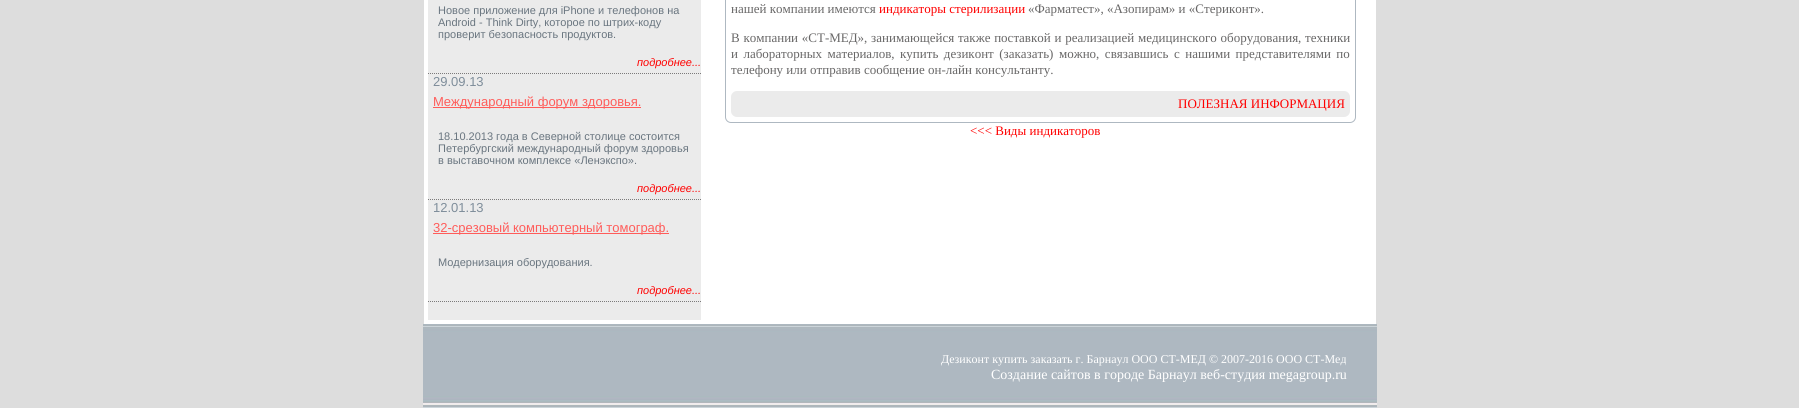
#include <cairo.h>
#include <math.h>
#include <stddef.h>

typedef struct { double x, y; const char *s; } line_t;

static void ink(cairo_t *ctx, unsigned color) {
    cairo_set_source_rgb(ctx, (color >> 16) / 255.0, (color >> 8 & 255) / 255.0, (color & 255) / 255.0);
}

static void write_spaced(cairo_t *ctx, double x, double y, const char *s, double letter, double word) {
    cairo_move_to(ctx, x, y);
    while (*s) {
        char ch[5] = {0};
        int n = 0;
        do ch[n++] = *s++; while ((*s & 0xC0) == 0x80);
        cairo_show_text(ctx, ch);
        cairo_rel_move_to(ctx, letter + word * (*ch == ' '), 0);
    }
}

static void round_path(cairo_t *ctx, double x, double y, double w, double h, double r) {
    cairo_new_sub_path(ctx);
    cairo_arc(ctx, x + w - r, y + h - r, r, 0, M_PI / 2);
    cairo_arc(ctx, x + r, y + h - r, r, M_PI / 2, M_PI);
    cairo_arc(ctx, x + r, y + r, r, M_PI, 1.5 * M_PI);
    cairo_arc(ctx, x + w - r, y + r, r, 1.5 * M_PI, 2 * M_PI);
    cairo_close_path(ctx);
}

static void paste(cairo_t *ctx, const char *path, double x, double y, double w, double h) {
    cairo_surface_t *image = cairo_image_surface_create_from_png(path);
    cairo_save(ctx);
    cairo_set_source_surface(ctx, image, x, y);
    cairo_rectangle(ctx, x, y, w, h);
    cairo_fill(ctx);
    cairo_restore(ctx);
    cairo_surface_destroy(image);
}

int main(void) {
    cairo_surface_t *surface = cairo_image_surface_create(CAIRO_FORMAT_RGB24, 1799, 408);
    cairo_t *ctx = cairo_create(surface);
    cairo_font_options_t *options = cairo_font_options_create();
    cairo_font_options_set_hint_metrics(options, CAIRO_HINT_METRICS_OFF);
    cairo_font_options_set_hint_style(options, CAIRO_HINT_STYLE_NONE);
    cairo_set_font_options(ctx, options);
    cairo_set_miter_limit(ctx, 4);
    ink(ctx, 0xDDDDDD);
    cairo_paint(ctx);
    ink(ctx, 0xFFFFFF);
    cairo_rectangle(ctx, 705, 0, 671, 324);
    cairo_fill(ctx);
    ink(ctx, 0xEBEBEB);
    cairo_rectangle(ctx, 426, -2, 277, 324);
    cairo_fill_preserve(ctx);
    ink(ctx, 0xFFFFFF);
    cairo_set_line_width(ctx, 4);
    cairo_stroke(ctx);
    cairo_select_font_face(ctx, "Liberation Sans", CAIRO_FONT_SLANT_NORMAL, CAIRO_FONT_WEIGHT_NORMAL);
    cairo_set_font_size(ctx, 11);
    ink(ctx, 0x69757F);
    {
        static const line_t items[] = {
            {438, 14, "Новое приложение для iPhone и телефонов на"},
            {438, 26, "Android - Think Dirty, которое по штрих-коду"},
            {438, 38, "проверит безопасность продуктов."},
        };
        for (size_t i = 0; i < sizeof items / sizeof *items; i++) {
            cairo_move_to(ctx, items[i].x, items[i].y);
            cairo_show_text(ctx, items[i].s);
        }
    }
    cairo_new_path(ctx);
    cairo_move_to(ctx, 428, 73.5);
    cairo_line_to(ctx, 701, 73.5);
    ink(ctx, 0x7B7A7A);
    cairo_set_line_width(ctx, 1);
    cairo_set_dash(ctx, (double[]){1, 1}, 2, 0);
    cairo_stroke(ctx);
    cairo_select_font_face(ctx, "Liberation Sans", CAIRO_FONT_SLANT_ITALIC, CAIRO_FONT_WEIGHT_NORMAL);
    ink(ctx, 0xFF0000);
    cairo_move_to(ctx, 637, 66);
    cairo_show_text(ctx, "подробнее...");
    cairo_select_font_face(ctx, "Liberation Sans", CAIRO_FONT_SLANT_NORMAL, CAIRO_FONT_WEIGHT_NORMAL);
    cairo_set_font_size(ctx, 13);
    ink(ctx, 0x7E8D9A);
    cairo_move_to(ctx, 433, 86);
    cairo_show_text(ctx, "29.09.13");
    ink(ctx, 0xFF5C5A);
    cairo_rectangle(ctx, 433, 107, 208, 1);
    cairo_fill(ctx);
    cairo_move_to(ctx, 433, 106);
    cairo_show_text(ctx, "Международный форум здоровья.");
    cairo_set_font_size(ctx, 11);
    ink(ctx, 0x69757F);
    {
        static const line_t items[] = {
            {438, 140, "18.10.2013 года в Северной столице состоится"},
            {438, 152, "Петербургский международный форум здоровья"},
            {438, 164, "в выставочном комплексе «Ленэкспо»."},
        };
        for (size_t i = 0; i < sizeof items / sizeof *items; i++) {
            cairo_move_to(ctx, items[i].x, items[i].y);
            cairo_show_text(ctx, items[i].s);
        }
    }
    cairo_new_path(ctx);
    cairo_move_to(ctx, 428, 199.5);
    cairo_line_to(ctx, 701, 199.5);
    ink(ctx, 0x7B7A7A);
    cairo_stroke(ctx);
    cairo_select_font_face(ctx, "Liberation Sans", CAIRO_FONT_SLANT_ITALIC, CAIRO_FONT_WEIGHT_NORMAL);
    ink(ctx, 0xFF0000);
    cairo_move_to(ctx, 637, 192);
    cairo_show_text(ctx, "подробнее...");
    cairo_select_font_face(ctx, "Liberation Sans", CAIRO_FONT_SLANT_NORMAL, CAIRO_FONT_WEIGHT_NORMAL);
    cairo_set_font_size(ctx, 13);
    ink(ctx, 0x7E8D9A);
    cairo_move_to(ctx, 433, 212);
    cairo_show_text(ctx, "12.01.13");
    ink(ctx, 0xFF5C5A);
    cairo_rectangle(ctx, 433, 233, 236, 1);
    cairo_fill(ctx);
    cairo_move_to(ctx, 433, 232);
    cairo_show_text(ctx, "32-срезовый компьютерный томограф.");
    cairo_set_font_size(ctx, 11);
    ink(ctx, 0x69757F);
    cairo_move_to(ctx, 438, 266);
    cairo_show_text(ctx, "Модернизация оборудования.");
    cairo_new_path(ctx);
    cairo_move_to(ctx, 428, 301.5);
    cairo_line_to(ctx, 701, 301.5);
    ink(ctx, 0x7B7A7A);
    cairo_stroke(ctx);
    cairo_select_font_face(ctx, "Liberation Sans", CAIRO_FONT_SLANT_ITALIC, CAIRO_FONT_WEIGHT_NORMAL);
    ink(ctx, 0xFF0000);
    cairo_move_to(ctx, 637, 294);
    cairo_show_text(ctx, "подробнее...");
    round_path(ctx, 725.5, -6.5, 630, 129, 5.5);
    ink(ctx, 0xAEB8C1);
    cairo_set_dash(ctx, NULL, 0, 0);
    cairo_stroke(ctx);
    cairo_select_font_face(ctx, "Liberation Serif", CAIRO_FONT_SLANT_NORMAL, CAIRO_FONT_WEIGHT_NORMAL);
    cairo_set_font_size(ctx, 13);
    ink(ctx, 0x686767);
    cairo_move_to(ctx, 731, 13);
    cairo_show_text(ctx, "нашей компании имеются");
    ink(ctx, 0xFF0000);
    cairo_move_to(ctx, 879, 13);
    cairo_show_text(ctx, "индикаторы стерилизации");
    ink(ctx, 0x686767);
    cairo_move_to(ctx, 1028, 13);
    cairo_show_text(ctx, "«Фарматест», «Азопирам» и «Стериконт».");
    write_spaced(ctx, 731, 42, "В компании «СТ-МЕД», занимающейся также поставкой и реализацией медицинского оборудования, техники", 0, 0.5);
    write_spaced(ctx, 731, 58, "и лабораторных материалов, купить дезиконт (заказать) можно, связавшись с нашими представителями по", 0, 2.25);
    cairo_move_to(ctx, 731, 74);
    cairo_show_text(ctx, "телефону или отправив сообщение он-лайн консультанту.");
    ink(ctx, 0xEBEBEB);
    round_path(ctx, 731, 91, 619, 26, 6);
    cairo_fill(ctx);
    ink(ctx, 0xFF0000);
    cairo_move_to(ctx, 1178, 108);
    cairo_show_text(ctx, "ПОЛЕЗНАЯ ИНФОРМАЦИЯ");
    cairo_move_to(ctx, 970, 135);
    cairo_show_text(ctx, "<<< Виды индикаторов");
    ink(ctx, 0xADB8C0);
    cairo_rectangle(ctx, 423, 324, 954, 1);
    cairo_fill(ctx);
    paste(ctx, "media/1.png", 423, 325, 954, 83);
    cairo_set_font_size(ctx, 12);
    ink(ctx, 0xFFFFFF);
    cairo_move_to(ctx, 941, 363);
    cairo_show_text(ctx, "Дезиконт купить заказать г. Барнаул ООО СТ-МЕД © 2007-2016 ООО СТ-Мед");
    cairo_set_font_size(ctx, 14);
    cairo_move_to(ctx, 991, 379);
    cairo_show_text(ctx, "Создание сайтов в городе Барнаул веб-студия megagroup.ru");
    cairo_surface_write_to_png(surface, "image.png");
    cairo_font_options_destroy(options);
    cairo_destroy(ctx);
    cairo_surface_destroy(surface);
    return 0;
}
